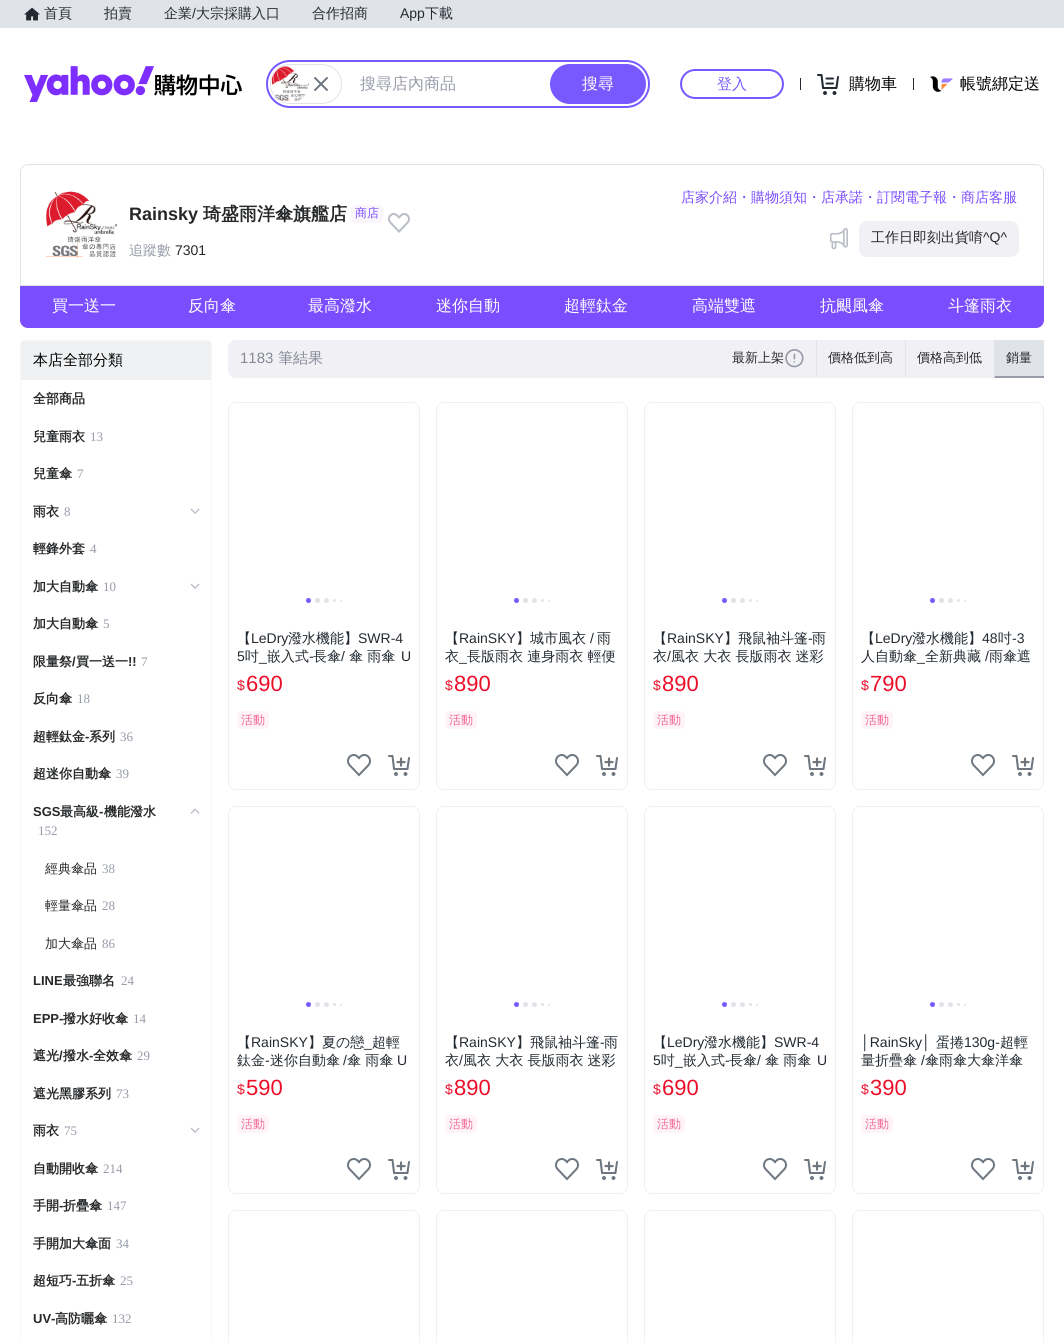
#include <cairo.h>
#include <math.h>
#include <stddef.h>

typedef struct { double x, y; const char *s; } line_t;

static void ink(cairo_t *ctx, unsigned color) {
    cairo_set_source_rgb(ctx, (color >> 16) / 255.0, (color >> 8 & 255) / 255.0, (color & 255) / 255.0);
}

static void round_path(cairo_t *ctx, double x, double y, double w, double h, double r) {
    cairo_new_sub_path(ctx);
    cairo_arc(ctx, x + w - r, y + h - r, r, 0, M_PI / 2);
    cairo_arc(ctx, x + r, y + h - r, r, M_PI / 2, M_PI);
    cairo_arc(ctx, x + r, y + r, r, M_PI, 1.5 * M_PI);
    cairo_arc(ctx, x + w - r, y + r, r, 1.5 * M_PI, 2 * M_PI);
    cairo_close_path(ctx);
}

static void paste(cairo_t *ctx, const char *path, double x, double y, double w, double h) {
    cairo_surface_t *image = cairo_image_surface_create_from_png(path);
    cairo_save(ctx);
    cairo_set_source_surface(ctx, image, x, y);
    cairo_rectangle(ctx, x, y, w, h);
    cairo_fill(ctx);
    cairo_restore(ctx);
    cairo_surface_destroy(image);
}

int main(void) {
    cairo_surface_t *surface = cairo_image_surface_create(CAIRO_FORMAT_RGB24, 1064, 1343);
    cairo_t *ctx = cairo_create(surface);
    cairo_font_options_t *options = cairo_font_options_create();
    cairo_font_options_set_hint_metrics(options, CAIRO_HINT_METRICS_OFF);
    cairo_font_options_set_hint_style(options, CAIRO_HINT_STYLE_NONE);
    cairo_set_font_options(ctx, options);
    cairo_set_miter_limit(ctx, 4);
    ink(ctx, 0xFFFFFF);
    cairo_paint(ctx);
    ink(ctx, 0xE0E4E9);
    cairo_rectangle(ctx, 0, 0, 1064, 28);
    cairo_fill(ctx);
    paste(ctx, "media/1.png", 24, 7, 16, 14);
    cairo_select_font_face(ctx, "WenQuanYi Zen Hei Medium", CAIRO_FONT_SLANT_NORMAL, CAIRO_FONT_WEIGHT_NORMAL);
    cairo_set_font_size(ctx, 14);
    ink(ctx, 0x232A31);
    {
        static const line_t items[] = {
            {44, 18, "首頁"},
            {104, 18, "拍賣"},
            {164, 18, "企業"},
        };
        for (size_t i = 0; i < sizeof items / sizeof *items; i++) {
            cairo_move_to(ctx, items[i].x, items[i].y);
            cairo_show_text(ctx, items[i].s);
        }
    }
    cairo_select_font_face(ctx, "Liberation Sans", CAIRO_FONT_SLANT_NORMAL, CAIRO_FONT_WEIGHT_NORMAL);
    cairo_move_to(ctx, 192, 18);
    cairo_show_text(ctx, "/");
    cairo_select_font_face(ctx, "WenQuanYi Zen Hei Medium", CAIRO_FONT_SLANT_NORMAL, CAIRO_FONT_WEIGHT_NORMAL);
    cairo_move_to(ctx, 196, 18);
    cairo_show_text(ctx, "大宗採購入口");
    cairo_move_to(ctx, 312, 18);
    cairo_show_text(ctx, "合作招商");
    cairo_select_font_face(ctx, "Liberation Sans", CAIRO_FONT_SLANT_NORMAL, CAIRO_FONT_WEIGHT_NORMAL);
    cairo_move_to(ctx, 400, 18);
    cairo_show_text(ctx, "App");
    cairo_select_font_face(ctx, "WenQuanYi Zen Hei Medium", CAIRO_FONT_SLANT_NORMAL, CAIRO_FONT_WEIGHT_NORMAL);
    cairo_move_to(ctx, 425, 18);
    cairo_show_text(ctx, "下載");
    paste(ctx, "media/2.png", 24, 66, 218, 36);
    round_path(ctx, 267, 61, 382, 46, 23);
    ink(ctx, 0x7759FF);
    cairo_stroke(ctx);
    round_path(ctx, 270.5, 64.5, 71, 39, 19.5);
    ink(ctx, 0xE0E4E9);
    cairo_set_line_width(ctx, 1);
    cairo_stroke(ctx);
    paste(ctx, "media/3.png", 271, 65, 38, 38);
    paste(ctx, "media/4.png", 314, 77, 14, 14);
    cairo_set_font_size(ctx, 16);
    ink(ctx, 0x979BA7);
    cairo_move_to(ctx, 360, 89);
    cairo_show_text(ctx, "搜尋店內商品");
    ink(ctx, 0x7759FF);
    round_path(ctx, 550, 64, 96, 40, 20);
    cairo_fill(ctx);
    ink(ctx, 0xFFFFFF);
    cairo_move_to(ctx, 582, 89);
    cairo_show_text(ctx, "搜尋");
    round_path(ctx, 681, 70, 102, 28, 14);
    ink(ctx, 0x7759FF);
    cairo_set_line_width(ctx, 2);
    cairo_stroke(ctx);
    cairo_set_font_size(ctx, 15);
    cairo_move_to(ctx, 717, 89);
    cairo_show_text(ctx, "登入");
    ink(ctx, 0x232A31);
    cairo_rectangle(ctx, 800, 78, 1, 12);
    cairo_fill(ctx);
    paste(ctx, "media/5.png", 817, 74, 22, 21);
    cairo_set_font_size(ctx, 16);
    ink(ctx, 0x000000);
    cairo_move_to(ctx, 849, 89);
    cairo_show_text(ctx, "購物車");
    ink(ctx, 0x232A31);
    cairo_rectangle(ctx, 913, 78, 1, 12);
    cairo_fill(ctx);
    paste(ctx, "media/6.png", 930, 76, 23, 16);
    ink(ctx, 0x000000);
    cairo_move_to(ctx, 960, 89);
    cairo_show_text(ctx, "帳號綁定送");
    cairo_new_path(ctx);
    cairo_move_to(ctx, 28, 164.5);
    cairo_line_to(ctx, 1036, 164.5);
    cairo_curve_to(ctx, 1040, 164.5, 1043.5, 168, 1043.5, 172);
    cairo_line_to(ctx, 1043.5, 285.5);
    cairo_line_to(ctx, 20.5, 285.5);
    cairo_line_to(ctx, 20.5, 172);
    cairo_curve_to(ctx, 20.5, 168, 24, 164.5, 28, 164.5);
    cairo_close_path(ctx);
    ink(ctx, 0xE0E4E9);
    cairo_set_line_width(ctx, 1);
    cairo_stroke(ctx);
    cairo_set_font_size(ctx, 14);
    ink(ctx, 0x7A4DFF);
    cairo_move_to(ctx, 681, 202);
    cairo_show_text(ctx, "店家介紹・購物須知・店承諾・訂閱電子報・商店客服");
    paste(ctx, "media/7.png", 45, 191, 72, 68);
    cairo_select_font_face(ctx, "Liberation Sans", CAIRO_FONT_SLANT_NORMAL, CAIRO_FONT_WEIGHT_BOLD);
    cairo_set_font_size(ctx, 18);
    ink(ctx, 0x26282A);
    cairo_move_to(ctx, 129, 220);
    cairo_show_text(ctx, "Rainsky");
    cairo_select_font_face(ctx, "WenQuanYi Zen Hei", CAIRO_FONT_SLANT_NORMAL, CAIRO_FONT_WEIGHT_BOLD);
    cairo_move_to(ctx, 203, 220);
    cairo_show_text(ctx, "琦盛雨洋傘旗艦店");
    ink(ctx, 0xFAF5FB);
    round_path(ctx, 351, 205, 32, 18, 4);
    cairo_fill(ctx);
    cairo_select_font_face(ctx, "WenQuanYi Zen Hei Medium", CAIRO_FONT_SLANT_NORMAL, CAIRO_FONT_WEIGHT_NORMAL);
    cairo_set_font_size(ctx, 12);
    ink(ctx, 0x7A4DFF);
    cairo_move_to(ctx, 355, 217);
    cairo_show_text(ctx, "商店");
    paste(ctx, "media/8.png", 388, 213, 22, 20);
    cairo_set_font_size(ctx, 14);
    ink(ctx, 0x979BA7);
    cairo_move_to(ctx, 129, 255);
    cairo_show_text(ctx, "追蹤數");
    cairo_select_font_face(ctx, "Liberation Sans", CAIRO_FONT_SLANT_NORMAL, CAIRO_FONT_WEIGHT_NORMAL);
    ink(ctx, 0x26282A);
    cairo_move_to(ctx, 175, 255);
    cairo_show_text(ctx, "7301");
    paste(ctx, "media/9.png", 830, 228, 18, 22);
    ink(ctx, 0xF1F1F5);
    round_path(ctx, 859, 221, 160, 36, 8);
    cairo_fill(ctx);
    cairo_select_font_face(ctx, "WenQuanYi Zen Hei Medium", CAIRO_FONT_SLANT_NORMAL, CAIRO_FONT_WEIGHT_NORMAL);
    ink(ctx, 0x26282A);
    cairo_move_to(ctx, 871, 242);
    cairo_show_text(ctx, "工作日即刻出貨唷");
    cairo_select_font_face(ctx, "Liberation Sans", CAIRO_FONT_SLANT_NORMAL, CAIRO_FONT_WEIGHT_NORMAL);
    cairo_move_to(ctx, 983, 242);
    cairo_show_text(ctx, "^Q^");
    ink(ctx, 0x7A4DFF);
    cairo_new_path(ctx);
    cairo_move_to(ctx, 20, 286);
    cairo_line_to(ctx, 1044, 286);
    cairo_line_to(ctx, 1044, 320);
    cairo_curve_to(ctx, 1044, 324.5, 1040.5, 328, 1036, 328);
    cairo_line_to(ctx, 28, 328);
    cairo_curve_to(ctx, 23.5, 328, 20, 324.5, 20, 320);
    cairo_close_path(ctx);
    cairo_fill(ctx);
    cairo_select_font_face(ctx, "WenQuanYi Zen Hei Medium", CAIRO_FONT_SLANT_NORMAL, CAIRO_FONT_WEIGHT_NORMAL);
    cairo_set_font_size(ctx, 16);
    ink(ctx, 0xFFFFFF);
    {
        static const line_t items[] = {
            {52, 311, "買一送一"},
            {188, 311, "反向傘"},
            {308, 311, "最高潑水"},
            {436, 311, "迷你自動"},
            {564, 311, "超輕鈦金"},
            {692, 311, "高端雙遮"},
            {820, 311, "抗颶風傘"},
            {948, 311, "斗篷雨衣"},
        };
        for (size_t i = 0; i < sizeof items / sizeof *items; i++) {
            cairo_move_to(ctx, items[i].x, items[i].y);
            cairo_show_text(ctx, items[i].s);
        }
    }
    round_path(ctx, 20.5, 340.5, 191, 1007, 3.5);
    ink(ctx, 0xF5F8FA);
    cairo_stroke(ctx);
    cairo_set_source_rgba(ctx, 0.878, 0.894, 0.914, 0.5);
    cairo_rectangle(ctx, 21, 341, 190, 39);
    cairo_fill(ctx);
    cairo_set_font_size(ctx, 15);
    ink(ctx, 0x000000);
    cairo_move_to(ctx, 33, 365);
    cairo_show_text(ctx, "本店全部分類");
    cairo_select_font_face(ctx, "WenQuanYi Zen Hei", CAIRO_FONT_SLANT_NORMAL, CAIRO_FONT_WEIGHT_BOLD);
    cairo_set_font_size(ctx, 13);
    ink(ctx, 0x26282A);
    cairo_move_to(ctx, 33, 403);
    cairo_show_text(ctx, "全部商品");
    cairo_move_to(ctx, 33, 441);
    cairo_show_text(ctx, "兒童雨衣");
    cairo_select_font_face(ctx, "Liberation Serif", CAIRO_FONT_SLANT_NORMAL, CAIRO_FONT_WEIGHT_NORMAL);
    ink(ctx, 0x979BA7);
    cairo_move_to(ctx, 90, 441);
    cairo_show_text(ctx, "13");
    cairo_select_font_face(ctx, "WenQuanYi Zen Hei", CAIRO_FONT_SLANT_NORMAL, CAIRO_FONT_WEIGHT_BOLD);
    ink(ctx, 0x26282A);
    cairo_move_to(ctx, 33, 478);
    cairo_show_text(ctx, "兒童傘");
    cairo_select_font_face(ctx, "Liberation Serif", CAIRO_FONT_SLANT_NORMAL, CAIRO_FONT_WEIGHT_NORMAL);
    ink(ctx, 0x979BA7);
    cairo_move_to(ctx, 77, 478);
    cairo_show_text(ctx, "7");
    cairo_select_font_face(ctx, "WenQuanYi Zen Hei", CAIRO_FONT_SLANT_NORMAL, CAIRO_FONT_WEIGHT_BOLD);
    ink(ctx, 0x26282A);
    cairo_move_to(ctx, 33, 516);
    cairo_show_text(ctx, "雨衣");
    cairo_select_font_face(ctx, "Liberation Serif", CAIRO_FONT_SLANT_NORMAL, CAIRO_FONT_WEIGHT_NORMAL);
    ink(ctx, 0x979BA7);
    cairo_move_to(ctx, 64, 516);
    cairo_show_text(ctx, "8");
    paste(ctx, "media/10.png", 190, 508, 10, 6);
    cairo_select_font_face(ctx, "WenQuanYi Zen Hei", CAIRO_FONT_SLANT_NORMAL, CAIRO_FONT_WEIGHT_BOLD);
    ink(ctx, 0x26282A);
    cairo_move_to(ctx, 33, 553);
    cairo_show_text(ctx, "輕鋒外套");
    cairo_select_font_face(ctx, "Liberation Serif", CAIRO_FONT_SLANT_NORMAL, CAIRO_FONT_WEIGHT_NORMAL);
    ink(ctx, 0x979BA7);
    cairo_move_to(ctx, 90, 553);
    cairo_show_text(ctx, "4");
    cairo_select_font_face(ctx, "WenQuanYi Zen Hei", CAIRO_FONT_SLANT_NORMAL, CAIRO_FONT_WEIGHT_BOLD);
    ink(ctx, 0x26282A);
    cairo_move_to(ctx, 33, 591);
    cairo_show_text(ctx, "加大自動傘");
    cairo_select_font_face(ctx, "Liberation Serif", CAIRO_FONT_SLANT_NORMAL, CAIRO_FONT_WEIGHT_NORMAL);
    ink(ctx, 0x979BA7);
    cairo_move_to(ctx, 103, 591);
    cairo_show_text(ctx, "10");
    paste(ctx, "media/10.png", 190, 583, 10, 6);
    cairo_select_font_face(ctx, "WenQuanYi Zen Hei", CAIRO_FONT_SLANT_NORMAL, CAIRO_FONT_WEIGHT_BOLD);
    ink(ctx, 0x26282A);
    cairo_move_to(ctx, 33, 628);
    cairo_show_text(ctx, "加大自動傘");
    cairo_select_font_face(ctx, "Liberation Serif", CAIRO_FONT_SLANT_NORMAL, CAIRO_FONT_WEIGHT_NORMAL);
    ink(ctx, 0x979BA7);
    cairo_move_to(ctx, 103, 628);
    cairo_show_text(ctx, "5");
    cairo_select_font_face(ctx, "WenQuanYi Zen Hei", CAIRO_FONT_SLANT_NORMAL, CAIRO_FONT_WEIGHT_BOLD);
    ink(ctx, 0x26282A);
    cairo_move_to(ctx, 33, 666);
    cairo_show_text(ctx, "限量祭 買一送一");
    cairo_select_font_face(ctx, "Liberation Sans", CAIRO_FONT_SLANT_NORMAL, CAIRO_FONT_WEIGHT_BOLD);
    cairo_move_to(ctx, 72, 666);
    cairo_show_text(ctx, "/");
    cairo_move_to(ctx, 128, 666);
    cairo_show_text(ctx, "!!");
    cairo_select_font_face(ctx, "Liberation Serif", CAIRO_FONT_SLANT_NORMAL, CAIRO_FONT_WEIGHT_NORMAL);
    ink(ctx, 0x979BA7);
    cairo_move_to(ctx, 141, 666);
    cairo_show_text(ctx, "7");
    cairo_select_font_face(ctx, "WenQuanYi Zen Hei", CAIRO_FONT_SLANT_NORMAL, CAIRO_FONT_WEIGHT_BOLD);
    ink(ctx, 0x26282A);
    cairo_move_to(ctx, 33, 703);
    cairo_show_text(ctx, "反向傘");
    cairo_select_font_face(ctx, "Liberation Serif", CAIRO_FONT_SLANT_NORMAL, CAIRO_FONT_WEIGHT_NORMAL);
    ink(ctx, 0x979BA7);
    cairo_move_to(ctx, 77, 703);
    cairo_show_text(ctx, "18");
    cairo_select_font_face(ctx, "WenQuanYi Zen Hei", CAIRO_FONT_SLANT_NORMAL, CAIRO_FONT_WEIGHT_BOLD);
    ink(ctx, 0x26282A);
    cairo_move_to(ctx, 33, 741);
    cairo_show_text(ctx, "超輕鈦金");
    cairo_select_font_face(ctx, "Liberation Sans", CAIRO_FONT_SLANT_NORMAL, CAIRO_FONT_WEIGHT_BOLD);
    cairo_move_to(ctx, 85, 741);
    cairo_show_text(ctx, "-");
    cairo_select_font_face(ctx, "WenQuanYi Zen Hei", CAIRO_FONT_SLANT_NORMAL, CAIRO_FONT_WEIGHT_BOLD);
    cairo_move_to(ctx, 89, 741);
    cairo_show_text(ctx, "系列");
    cairo_select_font_face(ctx, "Liberation Serif", CAIRO_FONT_SLANT_NORMAL, CAIRO_FONT_WEIGHT_NORMAL);
    ink(ctx, 0x979BA7);
    cairo_move_to(ctx, 120, 741);
    cairo_show_text(ctx, "36");
    cairo_select_font_face(ctx, "WenQuanYi Zen Hei", CAIRO_FONT_SLANT_NORMAL, CAIRO_FONT_WEIGHT_BOLD);
    ink(ctx, 0x26282A);
    cairo_move_to(ctx, 33, 778);
    cairo_show_text(ctx, "超迷你自動傘");
    cairo_select_font_face(ctx, "Liberation Serif", CAIRO_FONT_SLANT_NORMAL, CAIRO_FONT_WEIGHT_NORMAL);
    ink(ctx, 0x979BA7);
    cairo_move_to(ctx, 116, 778);
    cairo_show_text(ctx, "39");
    cairo_select_font_face(ctx, "Liberation Sans", CAIRO_FONT_SLANT_NORMAL, CAIRO_FONT_WEIGHT_BOLD);
    ink(ctx, 0x26282A);
    cairo_move_to(ctx, 33, 816);
    cairo_show_text(ctx, "SGS");
    cairo_select_font_face(ctx, "WenQuanYi Zen Hei", CAIRO_FONT_SLANT_NORMAL, CAIRO_FONT_WEIGHT_BOLD);
    cairo_move_to(ctx, 60, 816);
    cairo_show_text(ctx, "最高級");
    cairo_select_font_face(ctx, "Liberation Sans", CAIRO_FONT_SLANT_NORMAL, CAIRO_FONT_WEIGHT_BOLD);
    cairo_move_to(ctx, 99, 816);
    cairo_show_text(ctx, "-");
    cairo_select_font_face(ctx, "WenQuanYi Zen Hei", CAIRO_FONT_SLANT_NORMAL, CAIRO_FONT_WEIGHT_BOLD);
    cairo_move_to(ctx, 104, 816);
    cairo_show_text(ctx, "機能潑水");
    cairo_select_font_face(ctx, "Liberation Serif", CAIRO_FONT_SLANT_NORMAL, CAIRO_FONT_WEIGHT_NORMAL);
    ink(ctx, 0x979BA7);
    cairo_move_to(ctx, 38, 835);
    cairo_show_text(ctx, "152");
    paste(ctx, "media/11.png", 190, 808, 10, 6);
    cairo_select_font_face(ctx, "WenQuanYi Zen Hei Medium", CAIRO_FONT_SLANT_NORMAL, CAIRO_FONT_WEIGHT_NORMAL);
    ink(ctx, 0x26282A);
    cairo_move_to(ctx, 45, 873);
    cairo_show_text(ctx, "經典傘品");
    cairo_select_font_face(ctx, "Liberation Serif", CAIRO_FONT_SLANT_NORMAL, CAIRO_FONT_WEIGHT_NORMAL);
    ink(ctx, 0x979BA7);
    cairo_move_to(ctx, 102, 873);
    cairo_show_text(ctx, "38");
    cairo_select_font_face(ctx, "WenQuanYi Zen Hei Medium", CAIRO_FONT_SLANT_NORMAL, CAIRO_FONT_WEIGHT_NORMAL);
    ink(ctx, 0x26282A);
    cairo_move_to(ctx, 45, 910);
    cairo_show_text(ctx, "輕量傘品");
    cairo_select_font_face(ctx, "Liberation Serif", CAIRO_FONT_SLANT_NORMAL, CAIRO_FONT_WEIGHT_NORMAL);
    ink(ctx, 0x979BA7);
    cairo_move_to(ctx, 102, 910);
    cairo_show_text(ctx, "28");
    cairo_select_font_face(ctx, "WenQuanYi Zen Hei Medium", CAIRO_FONT_SLANT_NORMAL, CAIRO_FONT_WEIGHT_NORMAL);
    ink(ctx, 0x26282A);
    cairo_move_to(ctx, 45, 948);
    cairo_show_text(ctx, "加大傘品");
    cairo_select_font_face(ctx, "Liberation Serif", CAIRO_FONT_SLANT_NORMAL, CAIRO_FONT_WEIGHT_NORMAL);
    ink(ctx, 0x979BA7);
    cairo_move_to(ctx, 102, 948);
    cairo_show_text(ctx, "86");
    cairo_select_font_face(ctx, "Liberation Sans", CAIRO_FONT_SLANT_NORMAL, CAIRO_FONT_WEIGHT_BOLD);
    ink(ctx, 0x26282A);
    cairo_move_to(ctx, 33, 985);
    cairo_show_text(ctx, "LINE");
    cairo_select_font_face(ctx, "WenQuanYi Zen Hei", CAIRO_FONT_SLANT_NORMAL, CAIRO_FONT_WEIGHT_BOLD);
    cairo_move_to(ctx, 63, 985);
    cairo_show_text(ctx, "最強聯名");
    cairo_select_font_face(ctx, "Liberation Serif", CAIRO_FONT_SLANT_NORMAL, CAIRO_FONT_WEIGHT_NORMAL);
    ink(ctx, 0x979BA7);
    cairo_move_to(ctx, 121, 985);
    cairo_show_text(ctx, "24");
    cairo_select_font_face(ctx, "Liberation Sans", CAIRO_FONT_SLANT_NORMAL, CAIRO_FONT_WEIGHT_BOLD);
    ink(ctx, 0x26282A);
    cairo_move_to(ctx, 33, 1023);
    cairo_show_text(ctx, "EPP-");
    cairo_select_font_face(ctx, "WenQuanYi Zen Hei", CAIRO_FONT_SLANT_NORMAL, CAIRO_FONT_WEIGHT_BOLD);
    cairo_move_to(ctx, 63, 1023);
    cairo_show_text(ctx, "撥水好收傘");
    cairo_select_font_face(ctx, "Liberation Serif", CAIRO_FONT_SLANT_NORMAL, CAIRO_FONT_WEIGHT_NORMAL);
    ink(ctx, 0x979BA7);
    cairo_move_to(ctx, 133, 1023);
    cairo_show_text(ctx, "14");
    cairo_select_font_face(ctx, "WenQuanYi Zen Hei", CAIRO_FONT_SLANT_NORMAL, CAIRO_FONT_WEIGHT_BOLD);
    ink(ctx, 0x26282A);
    cairo_move_to(ctx, 33, 1060);
    cairo_show_text(ctx, "遮光");
    cairo_select_font_face(ctx, "Liberation Sans", CAIRO_FONT_SLANT_NORMAL, CAIRO_FONT_WEIGHT_BOLD);
    cairo_move_to(ctx, 59, 1060);
    cairo_show_text(ctx, "/");
    cairo_select_font_face(ctx, "WenQuanYi Zen Hei", CAIRO_FONT_SLANT_NORMAL, CAIRO_FONT_WEIGHT_BOLD);
    cairo_move_to(ctx, 63, 1060);
    cairo_show_text(ctx, "撥水");
    cairo_select_font_face(ctx, "Liberation Sans", CAIRO_FONT_SLANT_NORMAL, CAIRO_FONT_WEIGHT_BOLD);
    cairo_move_to(ctx, 89, 1060);
    cairo_show_text(ctx, "-");
    cairo_select_font_face(ctx, "WenQuanYi Zen Hei", CAIRO_FONT_SLANT_NORMAL, CAIRO_FONT_WEIGHT_BOLD);
    cairo_move_to(ctx, 93, 1060);
    cairo_show_text(ctx, "全效傘");
    cairo_select_font_face(ctx, "Liberation Serif", CAIRO_FONT_SLANT_NORMAL, CAIRO_FONT_WEIGHT_NORMAL);
    ink(ctx, 0x979BA7);
    cairo_move_to(ctx, 137, 1060);
    cairo_show_text(ctx, "29");
    cairo_select_font_face(ctx, "WenQuanYi Zen Hei", CAIRO_FONT_SLANT_NORMAL, CAIRO_FONT_WEIGHT_BOLD);
    ink(ctx, 0x26282A);
    cairo_move_to(ctx, 33, 1098);
    cairo_show_text(ctx, "遮光黑膠系列");
    cairo_select_font_face(ctx, "Liberation Serif", CAIRO_FONT_SLANT_NORMAL, CAIRO_FONT_WEIGHT_NORMAL);
    ink(ctx, 0x979BA7);
    cairo_move_to(ctx, 116, 1098);
    cairo_show_text(ctx, "73");
    cairo_select_font_face(ctx, "WenQuanYi Zen Hei", CAIRO_FONT_SLANT_NORMAL, CAIRO_FONT_WEIGHT_BOLD);
    ink(ctx, 0x26282A);
    cairo_move_to(ctx, 33, 1135);
    cairo_show_text(ctx, "雨衣");
    cairo_select_font_face(ctx, "Liberation Serif", CAIRO_FONT_SLANT_NORMAL, CAIRO_FONT_WEIGHT_NORMAL);
    ink(ctx, 0x979BA7);
    cairo_move_to(ctx, 64, 1135);
    cairo_show_text(ctx, "75");
    paste(ctx, "media/10.png", 190, 1127, 10, 6);
    cairo_select_font_face(ctx, "WenQuanYi Zen Hei", CAIRO_FONT_SLANT_NORMAL, CAIRO_FONT_WEIGHT_BOLD);
    ink(ctx, 0x26282A);
    cairo_move_to(ctx, 33, 1173);
    cairo_show_text(ctx, "自動開收傘");
    cairo_select_font_face(ctx, "Liberation Serif", CAIRO_FONT_SLANT_NORMAL, CAIRO_FONT_WEIGHT_NORMAL);
    ink(ctx, 0x979BA7);
    cairo_move_to(ctx, 103, 1173);
    cairo_show_text(ctx, "214");
    cairo_select_font_face(ctx, "WenQuanYi Zen Hei", CAIRO_FONT_SLANT_NORMAL, CAIRO_FONT_WEIGHT_BOLD);
    ink(ctx, 0x26282A);
    cairo_move_to(ctx, 33, 1210);
    cairo_show_text(ctx, "手開");
    cairo_select_font_face(ctx, "Liberation Sans", CAIRO_FONT_SLANT_NORMAL, CAIRO_FONT_WEIGHT_BOLD);
    cairo_move_to(ctx, 59, 1210);
    cairo_show_text(ctx, "-");
    cairo_select_font_face(ctx, "WenQuanYi Zen Hei", CAIRO_FONT_SLANT_NORMAL, CAIRO_FONT_WEIGHT_BOLD);
    cairo_move_to(ctx, 63, 1210);
    cairo_show_text(ctx, "折疊傘");
    cairo_select_font_face(ctx, "Liberation Serif", CAIRO_FONT_SLANT_NORMAL, CAIRO_FONT_WEIGHT_NORMAL);
    ink(ctx, 0x979BA7);
    cairo_move_to(ctx, 107, 1210);
    cairo_show_text(ctx, "147");
    cairo_select_font_face(ctx, "WenQuanYi Zen Hei", CAIRO_FONT_SLANT_NORMAL, CAIRO_FONT_WEIGHT_BOLD);
    ink(ctx, 0x26282A);
    cairo_move_to(ctx, 33, 1248);
    cairo_show_text(ctx, "手開加大傘面");
    cairo_select_font_face(ctx, "Liberation Serif", CAIRO_FONT_SLANT_NORMAL, CAIRO_FONT_WEIGHT_NORMAL);
    ink(ctx, 0x979BA7);
    cairo_move_to(ctx, 116, 1248);
    cairo_show_text(ctx, "34");
    cairo_select_font_face(ctx, "WenQuanYi Zen Hei", CAIRO_FONT_SLANT_NORMAL, CAIRO_FONT_WEIGHT_BOLD);
    ink(ctx, 0x26282A);
    cairo_move_to(ctx, 33, 1285);
    cairo_show_text(ctx, "超短巧");
    cairo_select_font_face(ctx, "Liberation Sans", CAIRO_FONT_SLANT_NORMAL, CAIRO_FONT_WEIGHT_BOLD);
    cairo_move_to(ctx, 72, 1285);
    cairo_show_text(ctx, "-");
    cairo_select_font_face(ctx, "WenQuanYi Zen Hei", CAIRO_FONT_SLANT_NORMAL, CAIRO_FONT_WEIGHT_BOLD);
    cairo_move_to(ctx, 76, 1285);
    cairo_show_text(ctx, "五折傘");
    cairo_select_font_face(ctx, "Liberation Serif", CAIRO_FONT_SLANT_NORMAL, CAIRO_FONT_WEIGHT_NORMAL);
    ink(ctx, 0x979BA7);
    cairo_move_to(ctx, 120, 1285);
    cairo_show_text(ctx, "25");
    cairo_select_font_face(ctx, "Liberation Sans", CAIRO_FONT_SLANT_NORMAL, CAIRO_FONT_WEIGHT_BOLD);
    ink(ctx, 0x26282A);
    cairo_move_to(ctx, 33, 1323);
    cairo_show_text(ctx, "UV-");
    cairo_select_font_face(ctx, "WenQuanYi Zen Hei", CAIRO_FONT_SLANT_NORMAL, CAIRO_FONT_WEIGHT_BOLD);
    cairo_move_to(ctx, 55, 1323);
    cairo_show_text(ctx, "高防曬傘");
    cairo_select_font_face(ctx, "Liberation Serif", CAIRO_FONT_SLANT_NORMAL, CAIRO_FONT_WEIGHT_NORMAL);
    ink(ctx, 0x979BA7);
    cairo_move_to(ctx, 112, 1323);
    cairo_show_text(ctx, "132");
    ink(ctx, 0xF1F1F5);
    round_path(ctx, 228, 340, 816, 38, 8);
    cairo_fill(ctx);
    cairo_select_font_face(ctx, "Liberation Sans", CAIRO_FONT_SLANT_NORMAL, CAIRO_FONT_WEIGHT_NORMAL);
    cairo_set_font_size(ctx, 15);
    ink(ctx, 0x858996);
    cairo_move_to(ctx, 240, 363);
    cairo_show_text(ctx, "1183");
    cairo_select_font_face(ctx, "WenQuanYi Zen Hei Medium", CAIRO_FONT_SLANT_NORMAL, CAIRO_FONT_WEIGHT_NORMAL);
    cairo_move_to(ctx, 278, 363);
    cairo_show_text(ctx, "筆結果");
    cairo_set_font_size(ctx, 13);
    ink(ctx, 0x26282A);
    cairo_move_to(ctx, 732, 362);
    cairo_show_text(ctx, "最新上架");
    paste(ctx, "media/12.png", 785, 349, 19, 19);
    ink(ctx, 0xE0E4E9);
    cairo_rectangle(ctx, 816, 340, 1, 36);
    cairo_fill(ctx);
    ink(ctx, 0x26282A);
    cairo_move_to(ctx, 828, 362);
    cairo_show_text(ctx, "價格低到高");
    ink(ctx, 0xE0E4E9);
    cairo_rectangle(ctx, 905, 340, 1, 36);
    cairo_fill(ctx);
    ink(ctx, 0x26282A);
    cairo_move_to(ctx, 917, 362);
    cairo_show_text(ctx, "價格高到低");
    ink(ctx, 0xE0E4E9);
    cairo_rectangle(ctx, 994, 340, 50, 38);
    cairo_fill(ctx);
    ink(ctx, 0x979BA7);
    cairo_new_path(ctx);
    cairo_move_to(ctx, 1044, 378);
    cairo_line_to(ctx, 994, 378);
    cairo_line_to(ctx, 995, 376);
    cairo_line_to(ctx, 1044, 376);
    cairo_close_path(ctx);
    cairo_fill(ctx);
    ink(ctx, 0xE0E4E9);
    cairo_new_path(ctx);
    cairo_move_to(ctx, 994, 378);
    cairo_line_to(ctx, 994, 340);
    cairo_line_to(ctx, 995, 340);
    cairo_line_to(ctx, 995, 376);
    cairo_close_path(ctx);
    cairo_fill(ctx);
    ink(ctx, 0x26282A);
    cairo_move_to(ctx, 1006, 362);
    cairo_show_text(ctx, "銷量");
    round_path(ctx, 228.5, 402.5, 191, 387, 7.5);
    ink(ctx, 0xF1F1F5);
    cairo_stroke(ctx);
    ink(ctx, 0x7759FF);
    cairo_arc(ctx, 308.5, 600.5, 2.5, 0, 2 * M_PI);
    cairo_fill(ctx);
    ink(ctx, 0xE0E4E9);
    cairo_arc(ctx, 317.5, 600.5, 2.5, 0, 2 * M_PI);
    cairo_fill(ctx);
    cairo_arc(ctx, 326.5, 600.5, 2.5, 0, 2 * M_PI);
    cairo_fill(ctx);
    cairo_arc(ctx, 334.5, 600.5, 1.5, 0, 2 * M_PI);
    cairo_fill(ctx);
    cairo_arc(ctx, 341, 601, 1, 0, 2 * M_PI);
    cairo_fill(ctx);
    cairo_set_font_size(ctx, 14);
    ink(ctx, 0x232A31);
    cairo_move_to(ctx, 237, 643);
    cairo_show_text(ctx, "【");
    cairo_select_font_face(ctx, "Liberation Sans", CAIRO_FONT_SLANT_NORMAL, CAIRO_FONT_WEIGHT_NORMAL);
    cairo_move_to(ctx, 251, 643);
    cairo_show_text(ctx, "LeDry");
    cairo_select_font_face(ctx, "WenQuanYi Zen Hei Medium", CAIRO_FONT_SLANT_NORMAL, CAIRO_FONT_WEIGHT_NORMAL);
    cairo_move_to(ctx, 288, 643);
    cairo_show_text(ctx, "潑水機能】");
    cairo_select_font_face(ctx, "Liberation Sans", CAIRO_FONT_SLANT_NORMAL, CAIRO_FONT_WEIGHT_NORMAL);
    cairo_move_to(ctx, 358, 643);
    cairo_show_text(ctx, "SWR-4");
    cairo_move_to(ctx, 237, 661);
    cairo_show_text(ctx, "5");
    cairo_select_font_face(ctx, "WenQuanYi Zen Hei Medium", CAIRO_FONT_SLANT_NORMAL, CAIRO_FONT_WEIGHT_NORMAL);
    cairo_move_to(ctx, 245, 661);
    cairo_show_text(ctx, "吋");
    cairo_select_font_face(ctx, "Liberation Sans", CAIRO_FONT_SLANT_NORMAL, CAIRO_FONT_WEIGHT_NORMAL);
    cairo_move_to(ctx, 259, 661);
    cairo_show_text(ctx, "_");
    cairo_select_font_face(ctx, "WenQuanYi Zen Hei Medium", CAIRO_FONT_SLANT_NORMAL, CAIRO_FONT_WEIGHT_NORMAL);
    cairo_move_to(ctx, 267, 661);
    cairo_show_text(ctx, "嵌入式");
    cairo_select_font_face(ctx, "Liberation Sans", CAIRO_FONT_SLANT_NORMAL, CAIRO_FONT_WEIGHT_NORMAL);
    cairo_move_to(ctx, 309, 661);
    cairo_show_text(ctx, "-");
    cairo_select_font_face(ctx, "WenQuanYi Zen Hei Medium", CAIRO_FONT_SLANT_NORMAL, CAIRO_FONT_WEIGHT_NORMAL);
    cairo_move_to(ctx, 313, 661);
    cairo_show_text(ctx, "長傘");
    cairo_select_font_face(ctx, "Liberation Sans", CAIRO_FONT_SLANT_NORMAL, CAIRO_FONT_WEIGHT_NORMAL);
    cairo_move_to(ctx, 341, 661);
    cairo_show_text(ctx, "/");
    cairo_select_font_face(ctx, "WenQuanYi Zen Hei Medium", CAIRO_FONT_SLANT_NORMAL, CAIRO_FONT_WEIGHT_NORMAL);
    cairo_move_to(ctx, 349, 661);
    cairo_show_text(ctx, "傘 雨傘");
    cairo_select_font_face(ctx, "Liberation Sans", CAIRO_FONT_SLANT_NORMAL, CAIRO_FONT_WEIGHT_NORMAL);
    cairo_move_to(ctx, 401, 661);
    cairo_show_text(ctx, "U");
    ink(ctx, 0xEB0F29);
    cairo_move_to(ctx, 237, 690);
    cairo_show_text(ctx, "$");
    cairo_set_font_size(ctx, 22);
    cairo_move_to(ctx, 246, 691);
    cairo_show_text(ctx, "690");
    ink(ctx, 0xFEF4F7);
    round_path(ctx, 237, 711, 32, 18, 4);
    cairo_fill(ctx);
    cairo_select_font_face(ctx, "WenQuanYi Zen Hei Medium", CAIRO_FONT_SLANT_NORMAL, CAIRO_FONT_WEIGHT_NORMAL);
    cairo_set_font_size(ctx, 12);
    ink(ctx, 0xF26591);
    cairo_move_to(ctx, 241, 724);
    cairo_show_text(ctx, "活動");
    paste(ctx, "media/13.png", 347, 754, 24, 23);
    paste(ctx, "media/14.png", 388, 755, 22, 21);
    round_path(ctx, 436.5, 402.5, 191, 387, 7.5);
    ink(ctx, 0xF1F1F5);
    cairo_stroke(ctx);
    ink(ctx, 0x7759FF);
    cairo_arc(ctx, 516.5, 600.5, 2.5, 0, 2 * M_PI);
    cairo_fill(ctx);
    ink(ctx, 0xE0E4E9);
    cairo_arc(ctx, 525.5, 600.5, 2.5, 0, 2 * M_PI);
    cairo_fill(ctx);
    cairo_arc(ctx, 534.5, 600.5, 2.5, 0, 2 * M_PI);
    cairo_fill(ctx);
    cairo_arc(ctx, 542.5, 600.5, 1.5, 0, 2 * M_PI);
    cairo_fill(ctx);
    cairo_arc(ctx, 549, 601, 1, 0, 2 * M_PI);
    cairo_fill(ctx);
    cairo_set_font_size(ctx, 14);
    ink(ctx, 0x232A31);
    cairo_move_to(ctx, 445, 643);
    cairo_show_text(ctx, "【");
    cairo_select_font_face(ctx, "Liberation Sans", CAIRO_FONT_SLANT_NORMAL, CAIRO_FONT_WEIGHT_NORMAL);
    cairo_move_to(ctx, 459, 643);
    cairo_show_text(ctx, "RainSKY");
    cairo_select_font_face(ctx, "WenQuanYi Zen Hei Medium", CAIRO_FONT_SLANT_NORMAL, CAIRO_FONT_WEIGHT_NORMAL);
    cairo_move_to(ctx, 516, 643);
    cairo_show_text(ctx, "】城市風衣");
    cairo_select_font_face(ctx, "Liberation Sans", CAIRO_FONT_SLANT_NORMAL, CAIRO_FONT_WEIGHT_NORMAL);
    cairo_move_to(ctx, 590, 643);
    cairo_show_text(ctx, "/");
    cairo_select_font_face(ctx, "WenQuanYi Zen Hei Medium", CAIRO_FONT_SLANT_NORMAL, CAIRO_FONT_WEIGHT_NORMAL);
    cairo_move_to(ctx, 597, 643);
    cairo_show_text(ctx, "雨");
    cairo_move_to(ctx, 445, 661);
    cairo_show_text(ctx, "衣");
    cairo_select_font_face(ctx, "Liberation Sans", CAIRO_FONT_SLANT_NORMAL, CAIRO_FONT_WEIGHT_NORMAL);
    cairo_move_to(ctx, 459, 661);
    cairo_show_text(ctx, "_");
    cairo_select_font_face(ctx, "WenQuanYi Zen Hei Medium", CAIRO_FONT_SLANT_NORMAL, CAIRO_FONT_WEIGHT_NORMAL);
    cairo_move_to(ctx, 467, 661);
    cairo_show_text(ctx, "長版雨衣 連身雨衣 輕便");
    cairo_select_font_face(ctx, "Liberation Sans", CAIRO_FONT_SLANT_NORMAL, CAIRO_FONT_WEIGHT_NORMAL);
    ink(ctx, 0xEB0F29);
    cairo_move_to(ctx, 445, 690);
    cairo_show_text(ctx, "$");
    cairo_set_font_size(ctx, 22);
    cairo_move_to(ctx, 454, 691);
    cairo_show_text(ctx, "890");
    ink(ctx, 0xFEF4F7);
    round_path(ctx, 445, 711, 32, 18, 4);
    cairo_fill(ctx);
    cairo_select_font_face(ctx, "WenQuanYi Zen Hei Medium", CAIRO_FONT_SLANT_NORMAL, CAIRO_FONT_WEIGHT_NORMAL);
    cairo_set_font_size(ctx, 12);
    ink(ctx, 0xF26591);
    cairo_move_to(ctx, 449, 724);
    cairo_show_text(ctx, "活動");
    paste(ctx, "media/13.png", 555, 754, 24, 23);
    paste(ctx, "media/14.png", 596, 755, 22, 21);
    round_path(ctx, 644.5, 402.5, 191, 387, 7.5);
    ink(ctx, 0xF1F1F5);
    cairo_stroke(ctx);
    ink(ctx, 0x7759FF);
    cairo_arc(ctx, 724.5, 600.5, 2.5, 0, 2 * M_PI);
    cairo_fill(ctx);
    ink(ctx, 0xE0E4E9);
    cairo_arc(ctx, 733.5, 600.5, 2.5, 0, 2 * M_PI);
    cairo_fill(ctx);
    cairo_arc(ctx, 742.5, 600.5, 2.5, 0, 2 * M_PI);
    cairo_fill(ctx);
    cairo_arc(ctx, 750.5, 600.5, 1.5, 0, 2 * M_PI);
    cairo_fill(ctx);
    cairo_arc(ctx, 757, 601, 1, 0, 2 * M_PI);
    cairo_fill(ctx);
    cairo_set_font_size(ctx, 14);
    ink(ctx, 0x232A31);
    cairo_move_to(ctx, 653, 643);
    cairo_show_text(ctx, "【");
    cairo_select_font_face(ctx, "Liberation Sans", CAIRO_FONT_SLANT_NORMAL, CAIRO_FONT_WEIGHT_NORMAL);
    cairo_move_to(ctx, 667, 643);
    cairo_show_text(ctx, "RainSKY");
    cairo_select_font_face(ctx, "WenQuanYi Zen Hei Medium", CAIRO_FONT_SLANT_NORMAL, CAIRO_FONT_WEIGHT_NORMAL);
    cairo_move_to(ctx, 724, 643);
    cairo_show_text(ctx, "】飛鼠袖斗篷");
    cairo_select_font_face(ctx, "Liberation Sans", CAIRO_FONT_SLANT_NORMAL, CAIRO_FONT_WEIGHT_NORMAL);
    cairo_move_to(ctx, 808, 643);
    cairo_show_text(ctx, "-");
    cairo_select_font_face(ctx, "WenQuanYi Zen Hei Medium", CAIRO_FONT_SLANT_NORMAL, CAIRO_FONT_WEIGHT_NORMAL);
    cairo_move_to(ctx, 812, 643);
    cairo_show_text(ctx, "雨");
    cairo_move_to(ctx, 653, 661);
    cairo_show_text(ctx, "衣");
    cairo_select_font_face(ctx, "Liberation Sans", CAIRO_FONT_SLANT_NORMAL, CAIRO_FONT_WEIGHT_NORMAL);
    cairo_move_to(ctx, 667, 661);
    cairo_show_text(ctx, "/");
    cairo_select_font_face(ctx, "WenQuanYi Zen Hei Medium", CAIRO_FONT_SLANT_NORMAL, CAIRO_FONT_WEIGHT_NORMAL);
    cairo_move_to(ctx, 671, 661);
    cairo_show_text(ctx, "風衣 大衣 長版雨衣 迷彩");
    cairo_select_font_face(ctx, "Liberation Sans", CAIRO_FONT_SLANT_NORMAL, CAIRO_FONT_WEIGHT_NORMAL);
    ink(ctx, 0xEB0F29);
    cairo_move_to(ctx, 653, 690);
    cairo_show_text(ctx, "$");
    cairo_set_font_size(ctx, 22);
    cairo_move_to(ctx, 662, 691);
    cairo_show_text(ctx, "890");
    ink(ctx, 0xFEF4F7);
    round_path(ctx, 653, 711, 32, 18, 4);
    cairo_fill(ctx);
    cairo_select_font_face(ctx, "WenQuanYi Zen Hei Medium", CAIRO_FONT_SLANT_NORMAL, CAIRO_FONT_WEIGHT_NORMAL);
    cairo_set_font_size(ctx, 12);
    ink(ctx, 0xF26591);
    cairo_move_to(ctx, 657, 724);
    cairo_show_text(ctx, "活動");
    paste(ctx, "media/13.png", 763, 754, 24, 23);
    paste(ctx, "media/14.png", 804, 755, 22, 21);
    round_path(ctx, 852.5, 402.5, 191, 387, 7.5);
    ink(ctx, 0xF1F1F5);
    cairo_stroke(ctx);
    ink(ctx, 0x7759FF);
    cairo_arc(ctx, 932.5, 600.5, 2.5, 0, 2 * M_PI);
    cairo_fill(ctx);
    ink(ctx, 0xE0E4E9);
    cairo_arc(ctx, 941.5, 600.5, 2.5, 0, 2 * M_PI);
    cairo_fill(ctx);
    cairo_arc(ctx, 950.5, 600.5, 2.5, 0, 2 * M_PI);
    cairo_fill(ctx);
    cairo_arc(ctx, 958.5, 600.5, 1.5, 0, 2 * M_PI);
    cairo_fill(ctx);
    cairo_arc(ctx, 965, 601, 1, 0, 2 * M_PI);
    cairo_fill(ctx);
    cairo_set_font_size(ctx, 14);
    ink(ctx, 0x232A31);
    cairo_move_to(ctx, 861, 643);
    cairo_show_text(ctx, "【");
    cairo_select_font_face(ctx, "Liberation Sans", CAIRO_FONT_SLANT_NORMAL, CAIRO_FONT_WEIGHT_NORMAL);
    cairo_move_to(ctx, 875, 643);
    cairo_show_text(ctx, "LeDry");
    cairo_select_font_face(ctx, "WenQuanYi Zen Hei Medium", CAIRO_FONT_SLANT_NORMAL, CAIRO_FONT_WEIGHT_NORMAL);
    cairo_move_to(ctx, 912, 643);
    cairo_show_text(ctx, "潑水機能】");
    cairo_select_font_face(ctx, "Liberation Sans", CAIRO_FONT_SLANT_NORMAL, CAIRO_FONT_WEIGHT_NORMAL);
    cairo_move_to(ctx, 982, 643);
    cairo_show_text(ctx, "48");
    cairo_select_font_face(ctx, "WenQuanYi Zen Hei Medium", CAIRO_FONT_SLANT_NORMAL, CAIRO_FONT_WEIGHT_NORMAL);
    cairo_move_to(ctx, 998, 643);
    cairo_show_text(ctx, "吋");
    cairo_select_font_face(ctx, "Liberation Sans", CAIRO_FONT_SLANT_NORMAL, CAIRO_FONT_WEIGHT_NORMAL);
    cairo_move_to(ctx, 1012, 643);
    cairo_show_text(ctx, "-3");
    cairo_select_font_face(ctx, "WenQuanYi Zen Hei Medium", CAIRO_FONT_SLANT_NORMAL, CAIRO_FONT_WEIGHT_NORMAL);
    cairo_move_to(ctx, 861, 661);
    cairo_show_text(ctx, "人自動傘");
    cairo_move_to(ctx, 925, 661);
    cairo_show_text(ctx, "全新典藏");
    cairo_select_font_face(ctx, "Liberation Sans", CAIRO_FONT_SLANT_NORMAL, CAIRO_FONT_WEIGHT_NORMAL);
    cairo_move_to(ctx, 985, 661);
    cairo_show_text(ctx, "/");
    cairo_select_font_face(ctx, "WenQuanYi Zen Hei Medium", CAIRO_FONT_SLANT_NORMAL, CAIRO_FONT_WEIGHT_NORMAL);
    cairo_move_to(ctx, 989, 661);
    cairo_show_text(ctx, "雨傘遮");
    cairo_select_font_face(ctx, "Liberation Sans", CAIRO_FONT_SLANT_NORMAL, CAIRO_FONT_WEIGHT_NORMAL);
    cairo_move_to(ctx, 917, 661);
    cairo_show_text(ctx, "_");
    ink(ctx, 0xEB0F29);
    cairo_move_to(ctx, 861, 690);
    cairo_show_text(ctx, "$");
    cairo_set_font_size(ctx, 22);
    cairo_move_to(ctx, 870, 691);
    cairo_show_text(ctx, "790");
    ink(ctx, 0xFEF4F7);
    round_path(ctx, 861, 711, 32, 18, 4);
    cairo_fill(ctx);
    cairo_select_font_face(ctx, "WenQuanYi Zen Hei Medium", CAIRO_FONT_SLANT_NORMAL, CAIRO_FONT_WEIGHT_NORMAL);
    cairo_set_font_size(ctx, 12);
    ink(ctx, 0xF26591);
    cairo_move_to(ctx, 865, 724);
    cairo_show_text(ctx, "活動");
    paste(ctx, "media/13.png", 971, 754, 24, 23);
    paste(ctx, "media/14.png", 1012, 755, 22, 21);
    round_path(ctx, 228.5, 806.5, 191, 387, 7.5);
    ink(ctx, 0xF1F1F5);
    cairo_stroke(ctx);
    ink(ctx, 0x7759FF);
    cairo_arc(ctx, 308.5, 1004.5, 2.5, 0, 2 * M_PI);
    cairo_fill(ctx);
    ink(ctx, 0xE0E4E9);
    cairo_arc(ctx, 317.5, 1004.5, 2.5, 0, 2 * M_PI);
    cairo_fill(ctx);
    cairo_arc(ctx, 326.5, 1004.5, 2.5, 0, 2 * M_PI);
    cairo_fill(ctx);
    cairo_arc(ctx, 334.5, 1004.5, 1.5, 0, 2 * M_PI);
    cairo_fill(ctx);
    cairo_arc(ctx, 341, 1005, 1, 0, 2 * M_PI);
    cairo_fill(ctx);
    cairo_set_font_size(ctx, 14);
    ink(ctx, 0x232A31);
    cairo_move_to(ctx, 237, 1047);
    cairo_show_text(ctx, "【");
    cairo_select_font_face(ctx, "Liberation Sans", CAIRO_FONT_SLANT_NORMAL, CAIRO_FONT_WEIGHT_NORMAL);
    cairo_move_to(ctx, 251, 1047);
    cairo_show_text(ctx, "RainSKY");
    cairo_select_font_face(ctx, "WenQuanYi Zen Hei Medium", CAIRO_FONT_SLANT_NORMAL, CAIRO_FONT_WEIGHT_NORMAL);
    cairo_move_to(ctx, 308, 1047);
    cairo_show_text(ctx, "】夏の戀");
    cairo_select_font_face(ctx, "Liberation Sans", CAIRO_FONT_SLANT_NORMAL, CAIRO_FONT_WEIGHT_NORMAL);
    cairo_move_to(ctx, 364, 1047);
    cairo_show_text(ctx, "_");
    cairo_select_font_face(ctx, "WenQuanYi Zen Hei Medium", CAIRO_FONT_SLANT_NORMAL, CAIRO_FONT_WEIGHT_NORMAL);
    cairo_move_to(ctx, 372, 1047);
    cairo_show_text(ctx, "超輕");
    cairo_move_to(ctx, 237, 1065);
    cairo_show_text(ctx, "鈦金");
    cairo_select_font_face(ctx, "Liberation Sans", CAIRO_FONT_SLANT_NORMAL, CAIRO_FONT_WEIGHT_NORMAL);
    cairo_move_to(ctx, 265, 1065);
    cairo_show_text(ctx, "-");
    cairo_select_font_face(ctx, "WenQuanYi Zen Hei Medium", CAIRO_FONT_SLANT_NORMAL, CAIRO_FONT_WEIGHT_NORMAL);
    cairo_move_to(ctx, 270, 1065);
    cairo_show_text(ctx, "迷你自動傘");
    cairo_select_font_face(ctx, "Liberation Sans", CAIRO_FONT_SLANT_NORMAL, CAIRO_FONT_WEIGHT_NORMAL);
    cairo_move_to(ctx, 343, 1065);
    cairo_show_text(ctx, "/");
    cairo_select_font_face(ctx, "WenQuanYi Zen Hei Medium", CAIRO_FONT_SLANT_NORMAL, CAIRO_FONT_WEIGHT_NORMAL);
    cairo_move_to(ctx, 347, 1065);
    cairo_show_text(ctx, "傘 雨傘");
    cairo_select_font_face(ctx, "Liberation Sans", CAIRO_FONT_SLANT_NORMAL, CAIRO_FONT_WEIGHT_NORMAL);
    cairo_move_to(ctx, 397, 1065);
    cairo_show_text(ctx, "U");
    ink(ctx, 0xEB0F29);
    cairo_move_to(ctx, 237, 1094);
    cairo_show_text(ctx, "$");
    cairo_set_font_size(ctx, 22);
    cairo_move_to(ctx, 246, 1095);
    cairo_show_text(ctx, "590");
    ink(ctx, 0xFEF4F7);
    round_path(ctx, 237, 1115, 32, 18, 4);
    cairo_fill(ctx);
    cairo_select_font_face(ctx, "WenQuanYi Zen Hei Medium", CAIRO_FONT_SLANT_NORMAL, CAIRO_FONT_WEIGHT_NORMAL);
    cairo_set_font_size(ctx, 12);
    ink(ctx, 0xF26591);
    cairo_move_to(ctx, 241, 1128);
    cairo_show_text(ctx, "活動");
    paste(ctx, "media/13.png", 347, 1158, 24, 23);
    paste(ctx, "media/14.png", 388, 1159, 22, 21);
    round_path(ctx, 436.5, 806.5, 191, 387, 7.5);
    ink(ctx, 0xF1F1F5);
    cairo_stroke(ctx);
    ink(ctx, 0x7759FF);
    cairo_arc(ctx, 516.5, 1004.5, 2.5, 0, 2 * M_PI);
    cairo_fill(ctx);
    ink(ctx, 0xE0E4E9);
    cairo_arc(ctx, 525.5, 1004.5, 2.5, 0, 2 * M_PI);
    cairo_fill(ctx);
    cairo_arc(ctx, 534.5, 1004.5, 2.5, 0, 2 * M_PI);
    cairo_fill(ctx);
    cairo_arc(ctx, 542.5, 1004.5, 1.5, 0, 2 * M_PI);
    cairo_fill(ctx);
    cairo_arc(ctx, 549, 1005, 1, 0, 2 * M_PI);
    cairo_fill(ctx);
    cairo_set_font_size(ctx, 14);
    ink(ctx, 0x232A31);
    cairo_move_to(ctx, 445, 1047);
    cairo_show_text(ctx, "【");
    cairo_select_font_face(ctx, "Liberation Sans", CAIRO_FONT_SLANT_NORMAL, CAIRO_FONT_WEIGHT_NORMAL);
    cairo_move_to(ctx, 459, 1047);
    cairo_show_text(ctx, "RainSKY");
    cairo_select_font_face(ctx, "WenQuanYi Zen Hei Medium", CAIRO_FONT_SLANT_NORMAL, CAIRO_FONT_WEIGHT_NORMAL);
    cairo_move_to(ctx, 516, 1047);
    cairo_show_text(ctx, "】飛鼠袖斗篷");
    cairo_select_font_face(ctx, "Liberation Sans", CAIRO_FONT_SLANT_NORMAL, CAIRO_FONT_WEIGHT_NORMAL);
    cairo_move_to(ctx, 600, 1047);
    cairo_show_text(ctx, "-");
    cairo_select_font_face(ctx, "WenQuanYi Zen Hei Medium", CAIRO_FONT_SLANT_NORMAL, CAIRO_FONT_WEIGHT_NORMAL);
    cairo_move_to(ctx, 604, 1047);
    cairo_show_text(ctx, "雨");
    cairo_move_to(ctx, 445, 1065);
    cairo_show_text(ctx, "衣");
    cairo_select_font_face(ctx, "Liberation Sans", CAIRO_FONT_SLANT_NORMAL, CAIRO_FONT_WEIGHT_NORMAL);
    cairo_move_to(ctx, 459, 1065);
    cairo_show_text(ctx, "/");
    cairo_select_font_face(ctx, "WenQuanYi Zen Hei Medium", CAIRO_FONT_SLANT_NORMAL, CAIRO_FONT_WEIGHT_NORMAL);
    cairo_move_to(ctx, 463, 1065);
    cairo_show_text(ctx, "風衣 大衣 長版雨衣 迷彩");
    cairo_select_font_face(ctx, "Liberation Sans", CAIRO_FONT_SLANT_NORMAL, CAIRO_FONT_WEIGHT_NORMAL);
    ink(ctx, 0xEB0F29);
    cairo_move_to(ctx, 445, 1094);
    cairo_show_text(ctx, "$");
    cairo_set_font_size(ctx, 22);
    cairo_move_to(ctx, 454, 1095);
    cairo_show_text(ctx, "890");
    ink(ctx, 0xFEF4F7);
    round_path(ctx, 445, 1115, 32, 18, 4);
    cairo_fill(ctx);
    cairo_select_font_face(ctx, "WenQuanYi Zen Hei Medium", CAIRO_FONT_SLANT_NORMAL, CAIRO_FONT_WEIGHT_NORMAL);
    cairo_set_font_size(ctx, 12);
    ink(ctx, 0xF26591);
    cairo_move_to(ctx, 449, 1128);
    cairo_show_text(ctx, "活動");
    paste(ctx, "media/13.png", 555, 1158, 24, 23);
    paste(ctx, "media/14.png", 596, 1159, 22, 21);
    round_path(ctx, 644.5, 806.5, 191, 387, 7.5);
    ink(ctx, 0xF1F1F5);
    cairo_stroke(ctx);
    ink(ctx, 0x7759FF);
    cairo_arc(ctx, 724.5, 1004.5, 2.5, 0, 2 * M_PI);
    cairo_fill(ctx);
    ink(ctx, 0xE0E4E9);
    cairo_arc(ctx, 733.5, 1004.5, 2.5, 0, 2 * M_PI);
    cairo_fill(ctx);
    cairo_arc(ctx, 742.5, 1004.5, 2.5, 0, 2 * M_PI);
    cairo_fill(ctx);
    cairo_arc(ctx, 750.5, 1004.5, 1.5, 0, 2 * M_PI);
    cairo_fill(ctx);
    cairo_arc(ctx, 757, 1005, 1, 0, 2 * M_PI);
    cairo_fill(ctx);
    cairo_set_font_size(ctx, 14);
    ink(ctx, 0x232A31);
    cairo_move_to(ctx, 653, 1047);
    cairo_show_text(ctx, "【");
    cairo_select_font_face(ctx, "Liberation Sans", CAIRO_FONT_SLANT_NORMAL, CAIRO_FONT_WEIGHT_NORMAL);
    cairo_move_to(ctx, 667, 1047);
    cairo_show_text(ctx, "LeDry");
    cairo_select_font_face(ctx, "WenQuanYi Zen Hei Medium", CAIRO_FONT_SLANT_NORMAL, CAIRO_FONT_WEIGHT_NORMAL);
    cairo_move_to(ctx, 704, 1047);
    cairo_show_text(ctx, "潑水機能】");
    cairo_select_font_face(ctx, "Liberation Sans", CAIRO_FONT_SLANT_NORMAL, CAIRO_FONT_WEIGHT_NORMAL);
    cairo_move_to(ctx, 774, 1047);
    cairo_show_text(ctx, "SWR-4");
    cairo_move_to(ctx, 653, 1065);
    cairo_show_text(ctx, "5");
    cairo_select_font_face(ctx, "WenQuanYi Zen Hei Medium", CAIRO_FONT_SLANT_NORMAL, CAIRO_FONT_WEIGHT_NORMAL);
    cairo_move_to(ctx, 661, 1065);
    cairo_show_text(ctx, "吋");
    cairo_select_font_face(ctx, "Liberation Sans", CAIRO_FONT_SLANT_NORMAL, CAIRO_FONT_WEIGHT_NORMAL);
    cairo_move_to(ctx, 675, 1065);
    cairo_show_text(ctx, "_");
    cairo_select_font_face(ctx, "WenQuanYi Zen Hei Medium", CAIRO_FONT_SLANT_NORMAL, CAIRO_FONT_WEIGHT_NORMAL);
    cairo_move_to(ctx, 683, 1065);
    cairo_show_text(ctx, "嵌入式");
    cairo_select_font_face(ctx, "Liberation Sans", CAIRO_FONT_SLANT_NORMAL, CAIRO_FONT_WEIGHT_NORMAL);
    cairo_move_to(ctx, 725, 1065);
    cairo_show_text(ctx, "-");
    cairo_select_font_face(ctx, "WenQuanYi Zen Hei Medium", CAIRO_FONT_SLANT_NORMAL, CAIRO_FONT_WEIGHT_NORMAL);
    cairo_move_to(ctx, 729, 1065);
    cairo_show_text(ctx, "長傘");
    cairo_select_font_face(ctx, "Liberation Sans", CAIRO_FONT_SLANT_NORMAL, CAIRO_FONT_WEIGHT_NORMAL);
    cairo_move_to(ctx, 757, 1065);
    cairo_show_text(ctx, "/");
    cairo_select_font_face(ctx, "WenQuanYi Zen Hei Medium", CAIRO_FONT_SLANT_NORMAL, CAIRO_FONT_WEIGHT_NORMAL);
    cairo_move_to(ctx, 765, 1065);
    cairo_show_text(ctx, "傘 雨傘");
    cairo_select_font_face(ctx, "Liberation Sans", CAIRO_FONT_SLANT_NORMAL, CAIRO_FONT_WEIGHT_NORMAL);
    cairo_move_to(ctx, 817, 1065);
    cairo_show_text(ctx, "U");
    ink(ctx, 0xEB0F29);
    cairo_move_to(ctx, 653, 1094);
    cairo_show_text(ctx, "$");
    cairo_set_font_size(ctx, 22);
    cairo_move_to(ctx, 662, 1095);
    cairo_show_text(ctx, "690");
    ink(ctx, 0xFEF4F7);
    round_path(ctx, 653, 1115, 32, 18, 4);
    cairo_fill(ctx);
    cairo_select_font_face(ctx, "WenQuanYi Zen Hei Medium", CAIRO_FONT_SLANT_NORMAL, CAIRO_FONT_WEIGHT_NORMAL);
    cairo_set_font_size(ctx, 12);
    ink(ctx, 0xF26591);
    cairo_move_to(ctx, 657, 1128);
    cairo_show_text(ctx, "活動");
    paste(ctx, "media/13.png", 763, 1158, 24, 23);
    paste(ctx, "media/14.png", 804, 1159, 22, 21);
    round_path(ctx, 852.5, 806.5, 191, 387, 7.5);
    ink(ctx, 0xF1F1F5);
    cairo_stroke(ctx);
    ink(ctx, 0x7759FF);
    cairo_arc(ctx, 932.5, 1004.5, 2.5, 0, 2 * M_PI);
    cairo_fill(ctx);
    ink(ctx, 0xE0E4E9);
    cairo_arc(ctx, 941.5, 1004.5, 2.5, 0, 2 * M_PI);
    cairo_fill(ctx);
    cairo_arc(ctx, 950.5, 1004.5, 2.5, 0, 2 * M_PI);
    cairo_fill(ctx);
    cairo_arc(ctx, 958.5, 1004.5, 1.5, 0, 2 * M_PI);
    cairo_fill(ctx);
    cairo_arc(ctx, 965, 1005, 1, 0, 2 * M_PI);
    cairo_fill(ctx);
    cairo_select_font_face(ctx, "Liberation Sans", CAIRO_FONT_SLANT_NORMAL, CAIRO_FONT_WEIGHT_NORMAL);
    cairo_set_font_size(ctx, 14);
    ink(ctx, 0x232A31);
    cairo_move_to(ctx, 861, 1047);
    cairo_show_text(ctx, "│RainSky│");
    cairo_select_font_face(ctx, "WenQuanYi Zen Hei Medium", CAIRO_FONT_SLANT_NORMAL, CAIRO_FONT_WEIGHT_NORMAL);
    cairo_move_to(ctx, 936, 1047);
    cairo_show_text(ctx, "蛋捲");
    cairo_select_font_face(ctx, "Liberation Sans", CAIRO_FONT_SLANT_NORMAL, CAIRO_FONT_WEIGHT_NORMAL);
    cairo_move_to(ctx, 964, 1047);
    cairo_show_text(ctx, "130g-");
    cairo_select_font_face(ctx, "WenQuanYi Zen Hei Medium", CAIRO_FONT_SLANT_NORMAL, CAIRO_FONT_WEIGHT_NORMAL);
    cairo_move_to(ctx, 1000, 1047);
    cairo_show_text(ctx, "超輕");
    cairo_move_to(ctx, 861, 1065);
    cairo_show_text(ctx, "量折疊傘");
    cairo_select_font_face(ctx, "Liberation Sans", CAIRO_FONT_SLANT_NORMAL, CAIRO_FONT_WEIGHT_NORMAL);
    cairo_move_to(ctx, 921, 1065);
    cairo_show_text(ctx, "/");
    cairo_select_font_face(ctx, "WenQuanYi Zen Hei Medium", CAIRO_FONT_SLANT_NORMAL, CAIRO_FONT_WEIGHT_NORMAL);
    cairo_move_to(ctx, 925, 1065);
    cairo_show_text(ctx, "傘雨傘大傘洋傘");
    cairo_select_font_face(ctx, "Liberation Sans", CAIRO_FONT_SLANT_NORMAL, CAIRO_FONT_WEIGHT_NORMAL);
    ink(ctx, 0xEB0F29);
    cairo_move_to(ctx, 861, 1094);
    cairo_show_text(ctx, "$");
    cairo_set_font_size(ctx, 22);
    cairo_move_to(ctx, 870, 1095);
    cairo_show_text(ctx, "390");
    ink(ctx, 0xFEF4F7);
    round_path(ctx, 861, 1115, 32, 18, 4);
    cairo_fill(ctx);
    cairo_select_font_face(ctx, "WenQuanYi Zen Hei Medium", CAIRO_FONT_SLANT_NORMAL, CAIRO_FONT_WEIGHT_NORMAL);
    cairo_set_font_size(ctx, 12);
    ink(ctx, 0xF26591);
    cairo_move_to(ctx, 865, 1128);
    cairo_show_text(ctx, "活動");
    paste(ctx, "media/13.png", 971, 1158, 24, 23);
    paste(ctx, "media/14.png", 1012, 1159, 22, 21);
    round_path(ctx, 228.5, 1210.5, 191, 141, 7.5);
    ink(ctx, 0xF1F1F5);
    cairo_stroke(ctx);
    round_path(ctx, 436.5, 1210.5, 191, 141, 7.5);
    cairo_stroke(ctx);
    round_path(ctx, 644.5, 1210.5, 191, 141, 7.5);
    cairo_stroke(ctx);
    round_path(ctx, 852.5, 1210.5, 191, 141, 7.5);
    cairo_stroke(ctx);
    cairo_surface_write_to_png(surface, "image.png");
    cairo_font_options_destroy(options);
    cairo_destroy(ctx);
    cairo_surface_destroy(surface);
    return 0;
}
